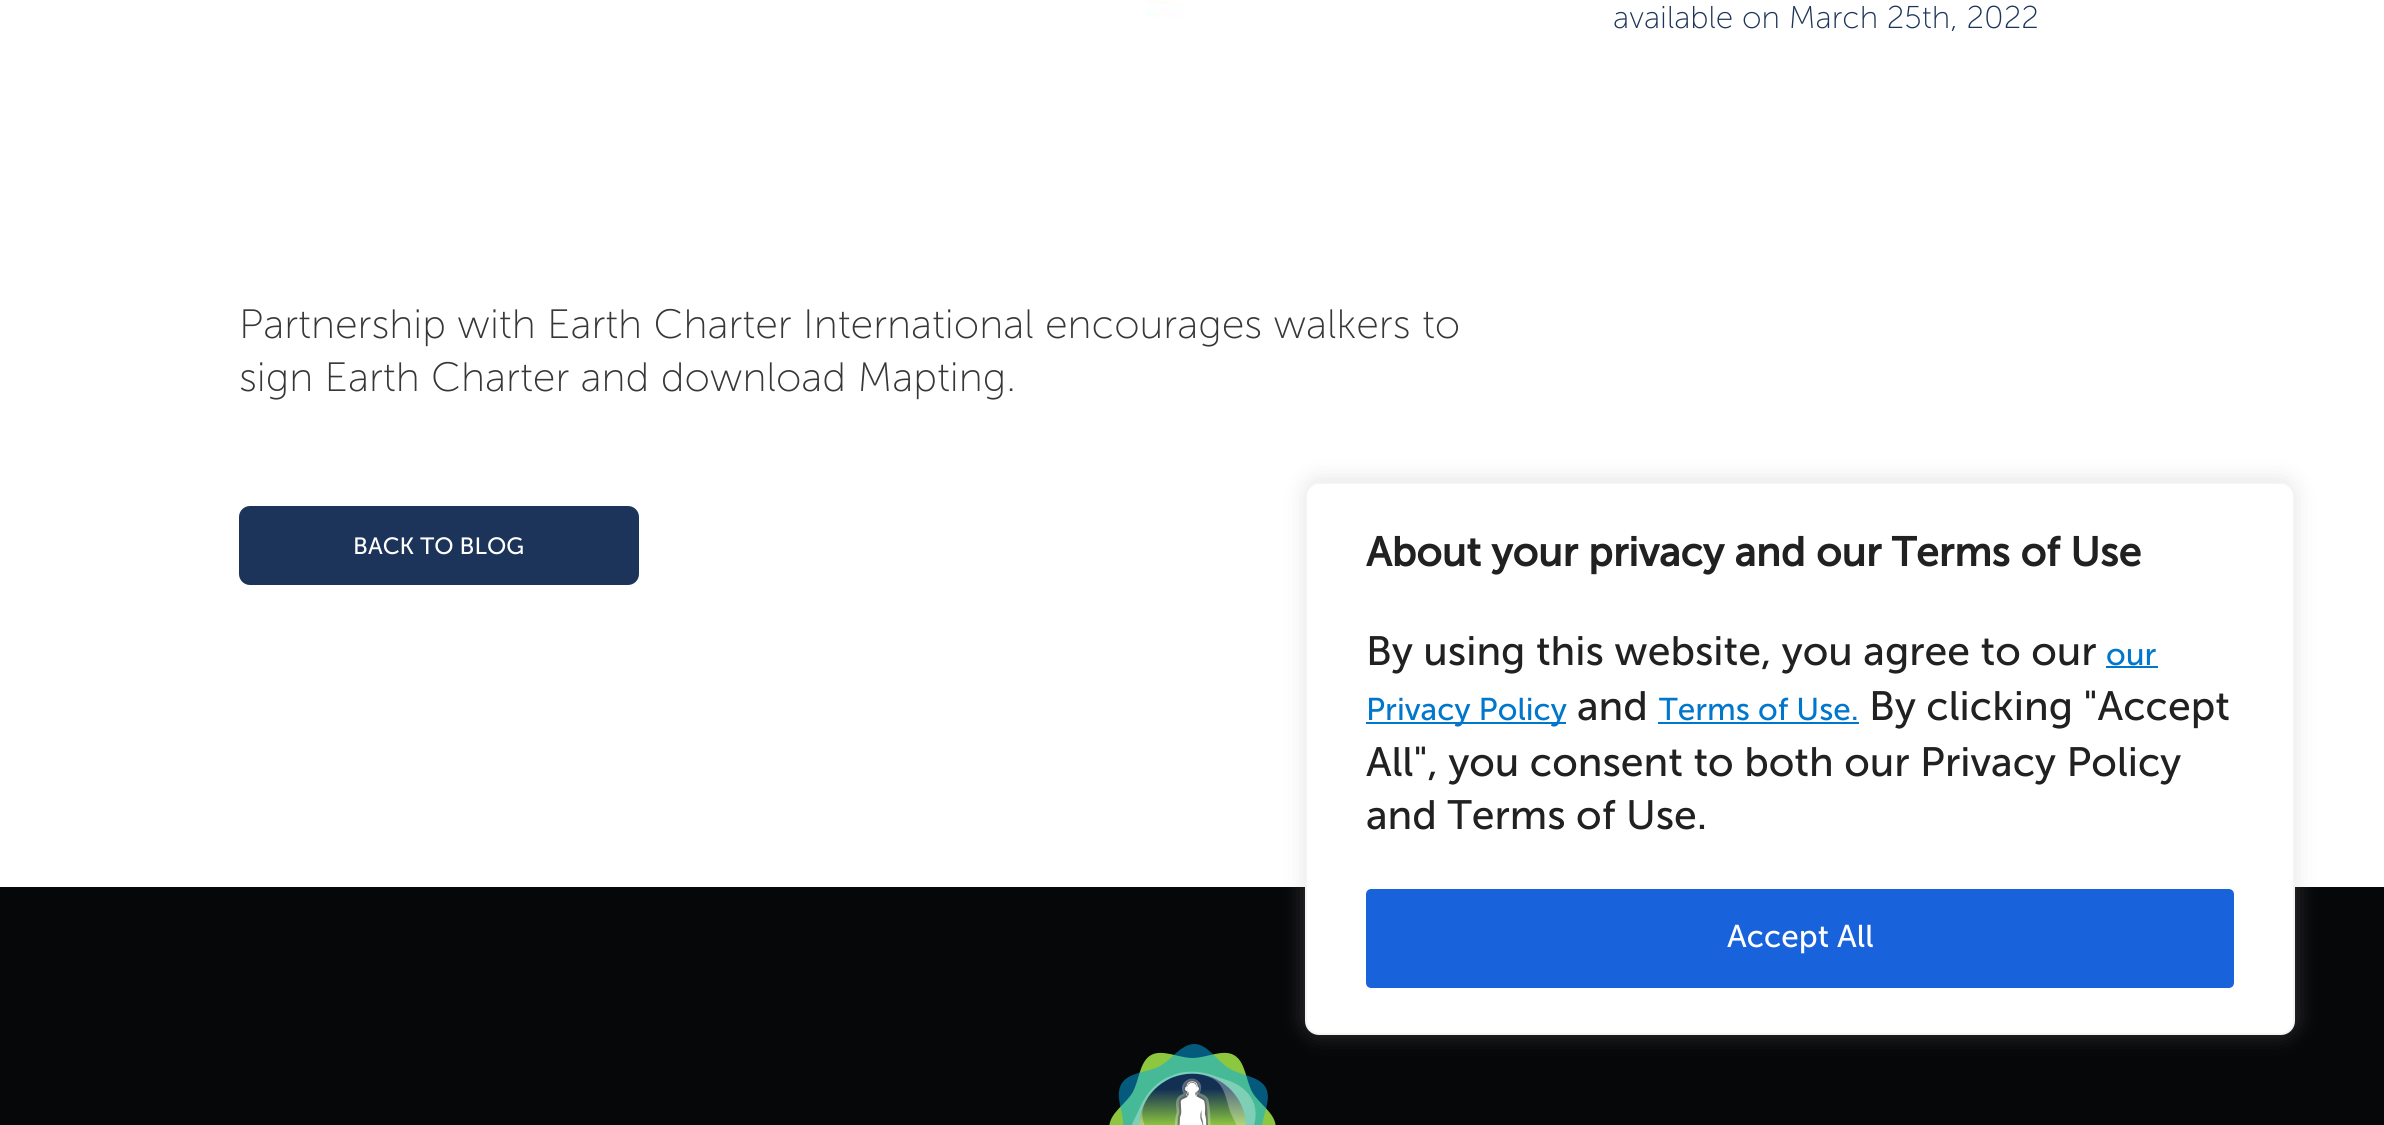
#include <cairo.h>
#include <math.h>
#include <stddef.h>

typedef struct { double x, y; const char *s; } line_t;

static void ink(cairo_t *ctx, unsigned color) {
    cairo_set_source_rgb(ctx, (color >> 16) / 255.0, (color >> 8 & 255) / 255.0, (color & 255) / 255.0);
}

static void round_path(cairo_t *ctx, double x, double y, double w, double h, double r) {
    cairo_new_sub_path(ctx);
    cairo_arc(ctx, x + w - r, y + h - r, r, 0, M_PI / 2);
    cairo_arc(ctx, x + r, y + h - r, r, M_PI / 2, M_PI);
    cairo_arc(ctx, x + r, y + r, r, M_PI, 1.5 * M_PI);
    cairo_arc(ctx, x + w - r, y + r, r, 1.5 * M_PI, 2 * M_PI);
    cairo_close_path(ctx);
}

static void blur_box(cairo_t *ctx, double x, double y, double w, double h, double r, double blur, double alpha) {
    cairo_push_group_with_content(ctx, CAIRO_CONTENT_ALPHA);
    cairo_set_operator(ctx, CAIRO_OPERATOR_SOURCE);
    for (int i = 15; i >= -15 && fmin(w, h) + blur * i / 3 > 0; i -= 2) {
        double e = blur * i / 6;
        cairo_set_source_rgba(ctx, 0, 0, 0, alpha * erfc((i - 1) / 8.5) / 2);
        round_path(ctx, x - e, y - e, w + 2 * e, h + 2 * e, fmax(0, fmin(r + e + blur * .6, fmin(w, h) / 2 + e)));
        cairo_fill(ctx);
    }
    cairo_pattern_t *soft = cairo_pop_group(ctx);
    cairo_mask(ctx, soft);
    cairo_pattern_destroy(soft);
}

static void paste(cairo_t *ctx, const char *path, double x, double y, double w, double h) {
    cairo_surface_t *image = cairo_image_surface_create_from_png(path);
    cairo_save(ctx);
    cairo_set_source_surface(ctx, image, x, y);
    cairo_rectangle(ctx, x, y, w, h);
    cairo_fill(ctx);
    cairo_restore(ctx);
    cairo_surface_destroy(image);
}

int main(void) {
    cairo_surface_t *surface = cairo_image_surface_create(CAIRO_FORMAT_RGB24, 2384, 1125);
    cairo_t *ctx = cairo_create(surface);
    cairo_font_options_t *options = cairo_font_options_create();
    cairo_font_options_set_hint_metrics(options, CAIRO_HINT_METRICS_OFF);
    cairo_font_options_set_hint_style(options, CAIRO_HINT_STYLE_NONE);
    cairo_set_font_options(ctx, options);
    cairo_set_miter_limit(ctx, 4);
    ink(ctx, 0xFFFFFF);
    cairo_paint(ctx);
    cairo_select_font_face(ctx, "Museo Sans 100 Light", CAIRO_FONT_SLANT_NORMAL, CAIRO_FONT_WEIGHT_NORMAL);
    cairo_set_font_size(ctx, 31.5);
    ink(ctx, 0x1D345A);
    cairo_move_to(ctx, 1613, 28);
    cairo_show_text(ctx, "available on March 25th, 2022");
    paste(ctx, "media/1.png", 1146, 0, 39, 18);
    cairo_set_font_size(ctx, 40.95);
    ink(ctx, 0x373737);
    cairo_move_to(ctx, 239, 338);
    cairo_show_text(ctx, "Partnership with Earth Charter International encourages walkers to");
    cairo_move_to(ctx, 239, 391);
    cairo_show_text(ctx, "sign Earth Charter and download Mapting.");
    ink(ctx, 0x1D345A);
    round_path(ctx, 240, 507, 398, 77, 10);
    cairo_fill_preserve(ctx);
    cairo_stroke(ctx);
    cairo_select_font_face(ctx, "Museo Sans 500", CAIRO_FONT_SLANT_NORMAL, CAIRO_FONT_WEIGHT_NORMAL);
    cairo_set_font_size(ctx, 23.5);
    ink(ctx, 0xFFFFFF);
    cairo_move_to(ctx, 353, 554);
    cairo_show_text(ctx, "BACK TO BLOG");
    ink(ctx, 0x060709);
    cairo_rectangle(ctx, 0, 887, 2384, 238);
    cairo_fill(ctx);
    paste(ctx, "media/2.png", 1109, 1044, 167, 81);
    ink(ctx, 0xACABAB);
    blur_box(ctx, 1305, 479, 990, 554, 14, 11, 0.3);
    ink(ctx, 0xFFFFFF);
    round_path(ctx, 1306, 483, 988, 551, 13);
    cairo_fill_preserve(ctx);
    ink(ctx, 0xF4F4F4);
    cairo_stroke(ctx);
    cairo_select_font_face(ctx, "Museo Sans 500", CAIRO_FONT_SLANT_NORMAL, CAIRO_FONT_WEIGHT_BOLD);
    cairo_set_font_size(ctx, 40.95);
    ink(ctx, 0x212121);
    cairo_move_to(ctx, 1366, 566);
    cairo_show_text(ctx, "About your privacy and our Terms of Use");
    cairo_select_font_face(ctx, "Museo Sans 500", CAIRO_FONT_SLANT_NORMAL, CAIRO_FONT_WEIGHT_NORMAL);
    cairo_move_to(ctx, 1366, 665);
    cairo_show_text(ctx, "By using this website, you agree to our");
    cairo_set_font_size(ctx, 31.5);
    ink(ctx, 0x0077CC);
    cairo_move_to(ctx, 2106, 665);
    cairo_show_text(ctx, "our");
    cairo_rectangle(ctx, 2106, 666, 52, 2);
    cairo_fill(ctx);
    cairo_rectangle(ctx, 1366, 722, 200, 2);
    cairo_fill(ctx);
    cairo_move_to(ctx, 1366, 720);
    cairo_show_text(ctx, "Privacy Policy");
    cairo_set_font_size(ctx, 40.95);
    ink(ctx, 0x212121);
    cairo_move_to(ctx, 1577, 720);
    cairo_show_text(ctx, "and");
    cairo_set_font_size(ctx, 31.5);
    ink(ctx, 0x0077CC);
    cairo_move_to(ctx, 1659, 720);
    cairo_show_text(ctx, "Terms of Use.");
    cairo_rectangle(ctx, 1658, 722, 201, 2);
    cairo_fill(ctx);
    cairo_set_font_size(ctx, 40.95);
    ink(ctx, 0x212121);
    {
        static const line_t items[] = {
            {1869, 720, "By clicking \"Accept"},
            {1366, 776, "All\", you consent to both our Privacy Policy"},
            {1366, 829, "and Terms of Use."},
        };
        for (size_t i = 0; i < sizeof items / sizeof *items; i++) {
            cairo_move_to(ctx, items[i].x, items[i].y);
            cairo_show_text(ctx, items[i].s);
        }
    }
    ink(ctx, 0x1863DC);
    round_path(ctx, 1368.5, 891.5, 863, 94, 2.5);
    cairo_fill_preserve(ctx);
    cairo_set_line_width(ctx, 5);
    cairo_stroke(ctx);
    cairo_set_font_size(ctx, 31.5);
    ink(ctx, 0xFFFFFF);
    cairo_move_to(ctx, 1727, 947);
    cairo_show_text(ctx, "Accept All");
    cairo_surface_write_to_png(surface, "image.png");
    cairo_font_options_destroy(options);
    cairo_destroy(ctx);
    cairo_surface_destroy(surface);
    return 0;
}
